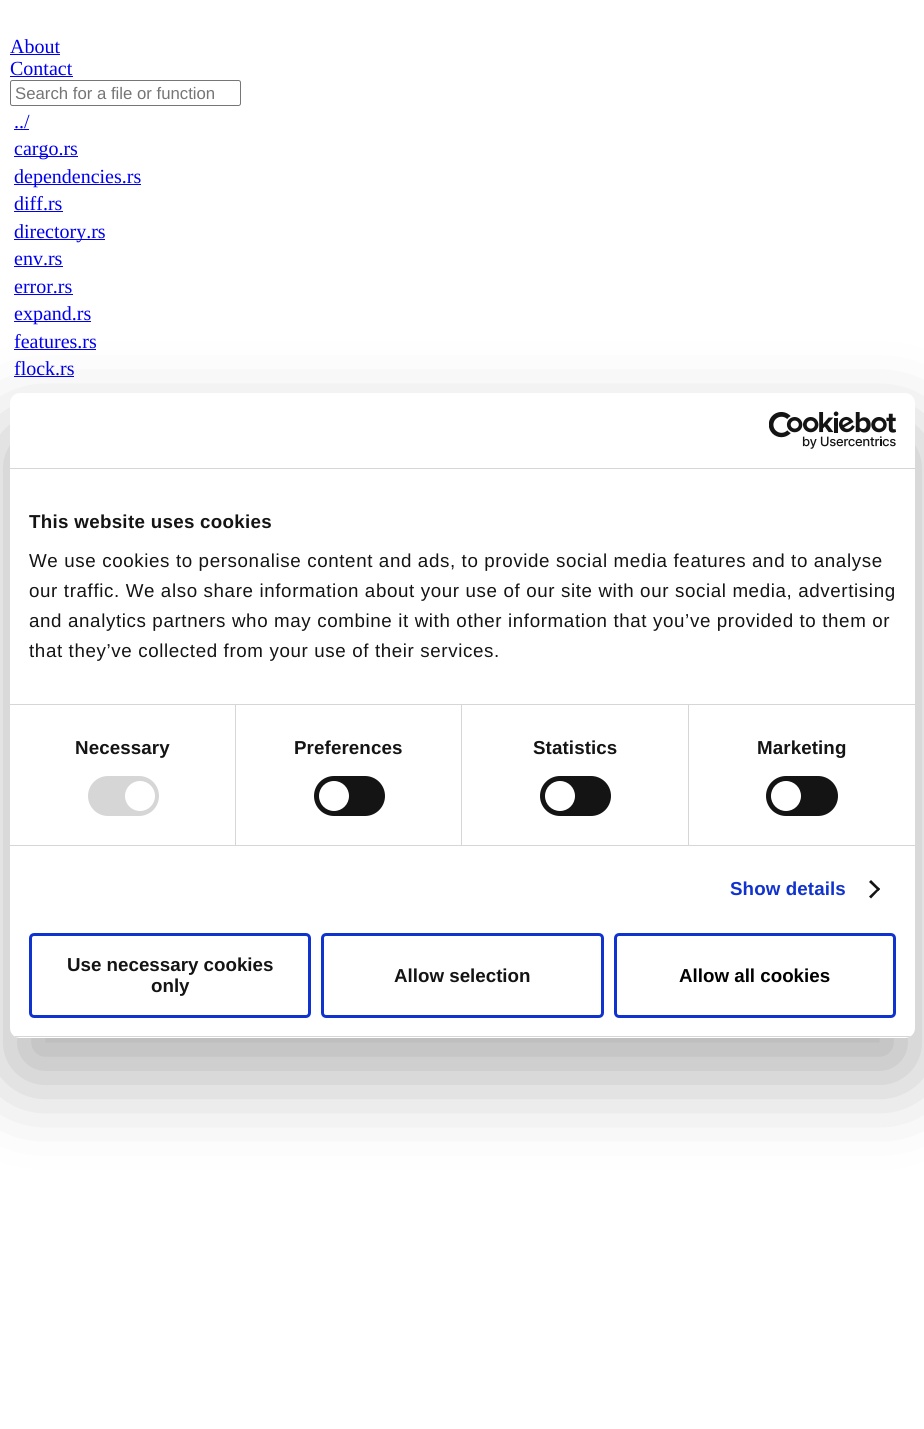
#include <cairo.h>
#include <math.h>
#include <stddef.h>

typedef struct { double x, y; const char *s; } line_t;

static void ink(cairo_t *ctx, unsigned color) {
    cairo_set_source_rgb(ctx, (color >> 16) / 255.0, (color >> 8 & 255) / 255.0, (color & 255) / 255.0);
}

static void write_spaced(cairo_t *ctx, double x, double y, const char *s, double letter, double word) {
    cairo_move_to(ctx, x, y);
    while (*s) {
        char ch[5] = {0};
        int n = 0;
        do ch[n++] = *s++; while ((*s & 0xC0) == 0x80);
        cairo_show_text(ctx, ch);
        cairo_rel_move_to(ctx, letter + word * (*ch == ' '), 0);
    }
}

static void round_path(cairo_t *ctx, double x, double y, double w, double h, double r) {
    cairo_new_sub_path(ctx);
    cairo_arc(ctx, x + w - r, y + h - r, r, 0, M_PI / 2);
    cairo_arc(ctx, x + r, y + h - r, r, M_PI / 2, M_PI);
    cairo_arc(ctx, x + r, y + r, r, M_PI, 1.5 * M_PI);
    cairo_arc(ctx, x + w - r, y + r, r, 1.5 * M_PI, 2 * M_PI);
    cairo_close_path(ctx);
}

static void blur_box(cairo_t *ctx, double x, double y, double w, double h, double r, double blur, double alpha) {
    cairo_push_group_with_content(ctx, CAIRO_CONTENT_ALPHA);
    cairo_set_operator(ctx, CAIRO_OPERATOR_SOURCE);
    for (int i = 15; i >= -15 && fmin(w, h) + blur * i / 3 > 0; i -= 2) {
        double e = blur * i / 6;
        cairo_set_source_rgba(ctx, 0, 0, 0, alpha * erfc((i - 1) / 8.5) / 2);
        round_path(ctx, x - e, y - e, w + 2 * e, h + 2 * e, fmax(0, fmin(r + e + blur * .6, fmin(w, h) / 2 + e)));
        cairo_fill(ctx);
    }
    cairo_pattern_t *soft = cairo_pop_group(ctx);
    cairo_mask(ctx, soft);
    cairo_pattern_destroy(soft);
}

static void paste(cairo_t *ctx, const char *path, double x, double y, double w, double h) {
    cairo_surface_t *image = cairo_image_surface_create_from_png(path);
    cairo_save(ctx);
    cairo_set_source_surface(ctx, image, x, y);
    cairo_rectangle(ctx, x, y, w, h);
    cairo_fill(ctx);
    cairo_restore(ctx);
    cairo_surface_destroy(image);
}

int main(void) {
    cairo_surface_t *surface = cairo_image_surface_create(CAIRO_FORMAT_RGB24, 924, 1429);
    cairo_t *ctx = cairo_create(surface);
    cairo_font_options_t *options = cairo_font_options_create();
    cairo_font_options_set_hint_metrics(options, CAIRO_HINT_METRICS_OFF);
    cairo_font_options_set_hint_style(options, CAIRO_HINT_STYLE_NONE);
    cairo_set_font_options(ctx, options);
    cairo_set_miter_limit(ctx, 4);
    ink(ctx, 0xFFFFFF);
    cairo_paint(ctx);
    cairo_select_font_face(ctx, "Liberation Serif", CAIRO_FONT_SLANT_NORMAL, CAIRO_FONT_WEIGHT_NORMAL);
    cairo_set_font_size(ctx, 20);
    ink(ctx, 0x0000EE);
    cairo_move_to(ctx, 10, 53);
    cairo_show_text(ctx, "About");
    cairo_rectangle(ctx, 10, 54, 50, 1);
    cairo_fill(ctx);
    cairo_move_to(ctx, 10, 75);
    cairo_show_text(ctx, "Contact");
    cairo_rectangle(ctx, 10, 76, 63, 1);
    cairo_fill(ctx);
    round_path(ctx, 10.5, 80.5, 230, 25, 2);
    ink(ctx, 0x767676);
    cairo_set_line_width(ctx, 1);
    cairo_stroke(ctx);
    cairo_select_font_face(ctx, "Liberation Sans", CAIRO_FONT_SLANT_NORMAL, CAIRO_FONT_WEIGHT_NORMAL);
    cairo_set_font_size(ctx, 16.75);
    ink(ctx, 0x757575);
    cairo_move_to(ctx, 15, 99);
    cairo_show_text(ctx, "Search for a file or function");
    cairo_select_font_face(ctx, "Liberation Serif", CAIRO_FONT_SLANT_NORMAL, CAIRO_FONT_WEIGHT_NORMAL);
    cairo_set_font_size(ctx, 20);
    ink(ctx, 0x0000EE);
    cairo_move_to(ctx, 14, 128);
    cairo_show_text(ctx, "../");
    cairo_rectangle(ctx, 14, 129, 15, 1);
    cairo_fill(ctx);
    cairo_rectangle(ctx, 14, 156, 64, 1);
    cairo_fill(ctx);
    cairo_move_to(ctx, 14, 155);
    cairo_show_text(ctx, "cargo.rs");
    cairo_rectangle(ctx, 14, 184, 127, 1);
    cairo_fill(ctx);
    cairo_move_to(ctx, 14, 183);
    cairo_show_text(ctx, "dependencies.rs");
    cairo_move_to(ctx, 14, 210);
    cairo_show_text(ctx, "diff.rs");
    cairo_rectangle(ctx, 14, 211, 49, 1);
    cairo_fill(ctx);
    cairo_rectangle(ctx, 14, 239, 91, 1);
    cairo_fill(ctx);
    cairo_move_to(ctx, 14, 238);
    cairo_show_text(ctx, "directory.rs");
    cairo_move_to(ctx, 14, 265);
    cairo_show_text(ctx, "env.rs");
    cairo_rectangle(ctx, 14, 266, 49, 1);
    cairo_fill(ctx);
    cairo_move_to(ctx, 14, 293);
    cairo_show_text(ctx, "error.rs");
    cairo_rectangle(ctx, 14, 294, 59, 1);
    cairo_fill(ctx);
    cairo_rectangle(ctx, 14, 321, 77, 1);
    cairo_fill(ctx);
    cairo_move_to(ctx, 14, 320);
    cairo_show_text(ctx, "expand.rs");
    cairo_move_to(ctx, 14, 348);
    cairo_show_text(ctx, "features.rs");
    cairo_rectangle(ctx, 14, 349, 82, 1);
    cairo_fill(ctx);
    cairo_move_to(ctx, 14, 375);
    cairo_show_text(ctx, "flock.rs");
    cairo_rectangle(ctx, 14, 376, 60, 1);
    cairo_fill(ctx);
    ink(ctx, 0x000000);
    blur_box(ctx, 10, 433, 905, 645, 10, 42.5, 0.3);
    ink(ctx, 0xFFFFFF);
    round_path(ctx, 10, 393, 905, 645, 10);
    cairo_fill(ctx);
    ink(ctx, 0xD6D6D6);
    cairo_rectangle(ctx, 10, 468, 905, 1);
    cairo_fill(ctx);
    paste(ctx, "media/1.png", 769, 411, 127, 38);
    cairo_rectangle(ctx, 10, 704, 905, 1);
    cairo_fill(ctx);
    cairo_select_font_face(ctx, "Liberation Sans", CAIRO_FONT_SLANT_NORMAL, CAIRO_FONT_WEIGHT_BOLD);
    cairo_set_font_size(ctx, 18.75);
    ink(ctx, 0x141414);
    write_spaced(ctx, 29, 528, "This website uses cookies", 0.3, 0);
    cairo_select_font_face(ctx, "Liberation Sans", CAIRO_FONT_SLANT_NORMAL, CAIRO_FONT_WEIGHT_NORMAL);
    {
        static const line_t items[] = {
            {29, 567, "We use cookies to personalise content and ads, to provide social media features and to analyse"},
            {29, 597, "our traffic. We also share information about your use of our site with our social media, advertising"},
            {29, 627, "and analytics partners who may combine it with other information that you’ve provided to them or"},
            {29, 657, "that they’ve collected from your use of their services."},
        };
        for (size_t i = 0; i < sizeof items / sizeof *items; i++) {
            write_spaced(ctx, items[i].x, items[i].y, items[i].s, 0.62, 0);
        }
    }
    ink(ctx, 0xD6D6D6);
    cairo_rectangle(ctx, 10, 845, 905, 1);
    cairo_fill(ctx);
    cairo_rectangle(ctx, 235, 705, 1, 140);
    cairo_fill(ctx);
    cairo_select_font_face(ctx, "Liberation Sans", CAIRO_FONT_SLANT_NORMAL, CAIRO_FONT_WEIGHT_BOLD);
    ink(ctx, 0x141414);
    write_spaced(ctx, 75, 754, "Necessary", 0.1, 0);
    ink(ctx, 0xD6D6D6);
    round_path(ctx, 88, 776, 71, 40, 20);
    cairo_fill(ctx);
    ink(ctx, 0xFFFFFF);
    cairo_arc(ctx, 140, 796, 15, 0, 2 * M_PI);
    cairo_fill(ctx);
    ink(ctx, 0xD6D6D6);
    cairo_rectangle(ctx, 461, 705, 1, 140);
    cairo_fill(ctx);
    ink(ctx, 0x141414);
    write_spaced(ctx, 294, 754, "Preferences", 0.1, 0);
    round_path(ctx, 314, 776, 71, 40, 20);
    cairo_fill(ctx);
    ink(ctx, 0xFFFFFF);
    cairo_arc(ctx, 334, 796, 15, 0, 2 * M_PI);
    cairo_fill(ctx);
    ink(ctx, 0xD6D6D6);
    cairo_rectangle(ctx, 688, 705, 1, 140);
    cairo_fill(ctx);
    ink(ctx, 0x141414);
    write_spaced(ctx, 533, 754, "Statistics", 0.1, 0);
    round_path(ctx, 540, 776, 71, 40, 20);
    cairo_fill(ctx);
    ink(ctx, 0xFFFFFF);
    cairo_arc(ctx, 560, 796, 15, 0, 2 * M_PI);
    cairo_fill(ctx);
    ink(ctx, 0x141414);
    write_spaced(ctx, 757, 754, "Marketing", 0.1, 0);
    round_path(ctx, 766, 776, 72, 40, 20);
    cairo_fill(ctx);
    ink(ctx, 0xFFFFFF);
    cairo_arc(ctx, 786, 796, 15, 0, 2 * M_PI);
    cairo_fill(ctx);
    ink(ctx, 0x1032CF);
    write_spaced(ctx, 730, 895, "Show details", 0.1, 0);
    ink(ctx, 0x141414);
    cairo_new_path(ctx);
    cairo_move_to(ctx, 871, 880);
    cairo_line_to(ctx, 880, 889);
    cairo_line_to(ctx, 878.5, 891);
    cairo_line_to(ctx, 869, 882);
    cairo_close_path(ctx);
    cairo_fill(ctx);
    cairo_new_path(ctx);
    cairo_move_to(ctx, 878.5, 887.5);
    cairo_line_to(ctx, 880, 889);
    cairo_line_to(ctx, 871, 898.5);
    cairo_line_to(ctx, 869, 896.5);
    cairo_close_path(ctx);
    cairo_fill(ctx);
    cairo_save(ctx);
    round_path(ctx, 10, 393, 905, 645, 10);
    cairo_clip(ctx);
    ink(ctx, 0xD6D6D6);
    cairo_rectangle(ctx, 10, 1036, 905, 1);
    cairo_fill(ctx);
    cairo_restore(ctx);
    round_path(ctx, 30.5, 934.5, 279, 82, 3.5);
    ink(ctx, 0x1032CF);
    cairo_set_line_width(ctx, 3);
    cairo_stroke(ctx);
    ink(ctx, 0x141414);
    cairo_move_to(ctx, 67, 971);
    cairo_show_text(ctx, "Use necessary cookies");
    cairo_move_to(ctx, 151, 992);
    cairo_show_text(ctx, "only");
    round_path(ctx, 322.5, 934.5, 280, 82, 3.5);
    ink(ctx, 0x1032CF);
    cairo_stroke(ctx);
    ink(ctx, 0x141414);
    cairo_move_to(ctx, 394, 982);
    cairo_show_text(ctx, "Allow selection");
    round_path(ctx, 615.5, 934.5, 279, 82, 3.5);
    ink(ctx, 0x1032CF);
    cairo_stroke(ctx);
    ink(ctx, 0x000000);
    cairo_move_to(ctx, 679, 982);
    cairo_show_text(ctx, "Allow all cookies");
    cairo_surface_write_to_png(surface, "image.png");
    cairo_font_options_destroy(options);
    cairo_destroy(ctx);
    cairo_surface_destroy(surface);
    return 0;
}
